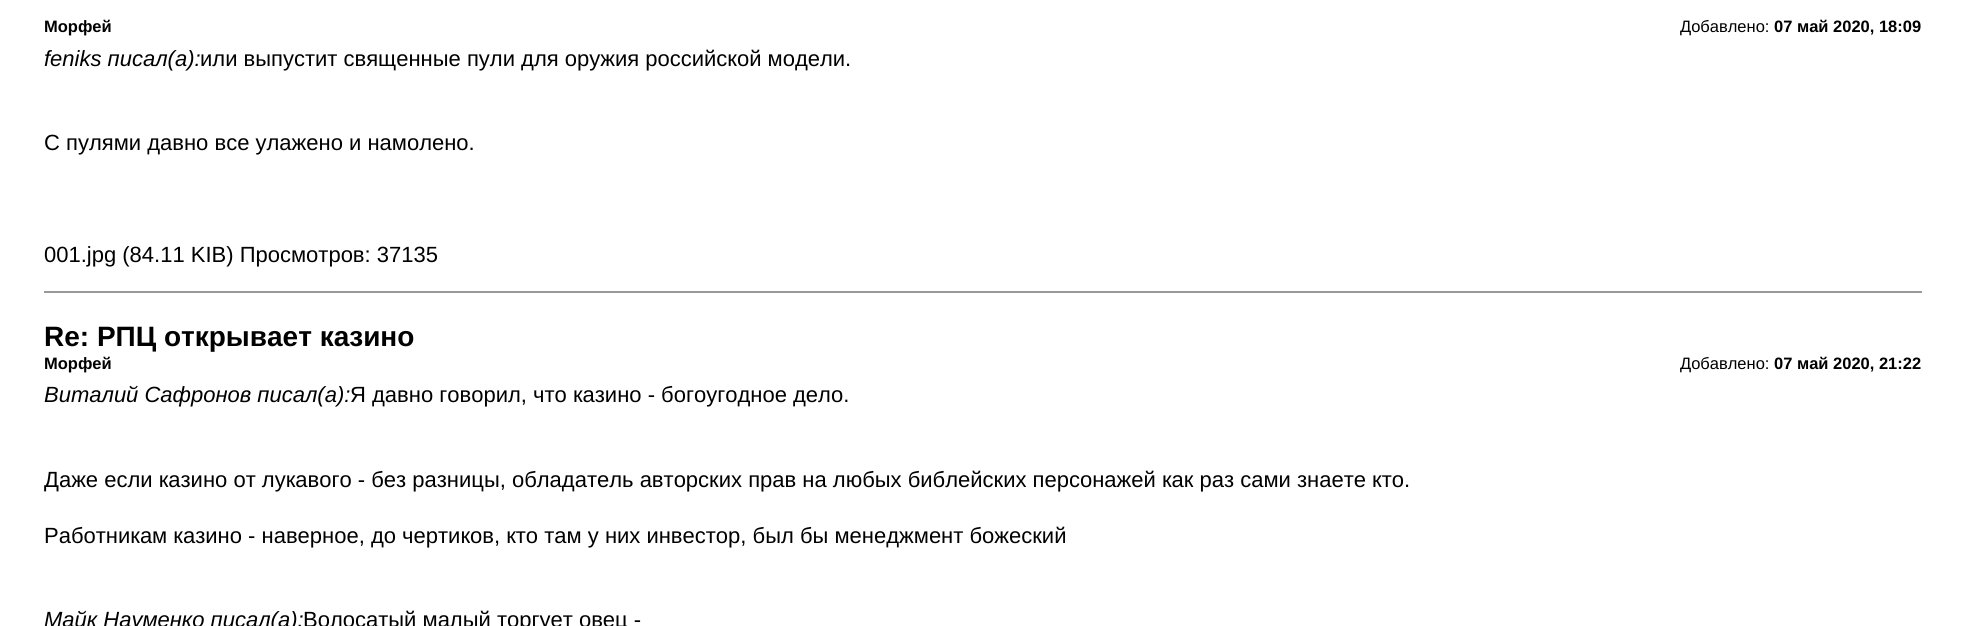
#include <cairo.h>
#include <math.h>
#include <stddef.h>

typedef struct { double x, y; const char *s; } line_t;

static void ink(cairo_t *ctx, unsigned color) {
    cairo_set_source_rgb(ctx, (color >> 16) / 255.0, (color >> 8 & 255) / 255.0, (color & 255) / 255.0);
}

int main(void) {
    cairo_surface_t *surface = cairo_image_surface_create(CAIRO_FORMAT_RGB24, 1965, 626);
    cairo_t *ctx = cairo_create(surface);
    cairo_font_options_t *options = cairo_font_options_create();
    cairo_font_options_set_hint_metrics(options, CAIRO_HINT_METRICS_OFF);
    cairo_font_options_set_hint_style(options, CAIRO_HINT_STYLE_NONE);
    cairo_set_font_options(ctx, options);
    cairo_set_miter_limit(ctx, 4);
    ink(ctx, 0xFFFFFF);
    cairo_paint(ctx);
    cairo_select_font_face(ctx, "Liberation Sans", CAIRO_FONT_SLANT_NORMAL, CAIRO_FONT_WEIGHT_BOLD);
    cairo_set_font_size(ctx, 16.5);
    ink(ctx, 0x000000);
    cairo_move_to(ctx, 44, 32);
    cairo_show_text(ctx, "Морфей");
    cairo_select_font_face(ctx, "Liberation Sans", CAIRO_FONT_SLANT_NORMAL, CAIRO_FONT_WEIGHT_NORMAL);
    cairo_move_to(ctx, 1680, 32);
    cairo_show_text(ctx, "Добавлено:");
    cairo_select_font_face(ctx, "Liberation Sans", CAIRO_FONT_SLANT_NORMAL, CAIRO_FONT_WEIGHT_BOLD);
    cairo_move_to(ctx, 1774, 32);
    cairo_show_text(ctx, "07 май 2020, 18:09");
    cairo_select_font_face(ctx, "Liberation Sans", CAIRO_FONT_SLANT_ITALIC, CAIRO_FONT_WEIGHT_NORMAL);
    cairo_set_font_size(ctx, 22);
    cairo_move_to(ctx, 44, 66);
    cairo_show_text(ctx, "feniks писал(а):");
    cairo_select_font_face(ctx, "Liberation Sans", CAIRO_FONT_SLANT_NORMAL, CAIRO_FONT_WEIGHT_NORMAL);
    {
        static const line_t items[] = {
            {200, 66, "или выпустит священные пули для оружия российской модели."},
            {44, 150, "С пулями давно все улажено и намолено."},
            {44, 262, "001.jpg (84.11 KIB) Просмотров: 37135"},
        };
        for (size_t i = 0; i < sizeof items / sizeof *items; i++) {
            cairo_move_to(ctx, items[i].x, items[i].y);
            cairo_show_text(ctx, items[i].s);
        }
    }
    ink(ctx, 0x999999);
    cairo_rectangle(ctx, 44, 291, 1878, 2);
    cairo_fill(ctx);
    cairo_select_font_face(ctx, "Liberation Sans", CAIRO_FONT_SLANT_NORMAL, CAIRO_FONT_WEIGHT_BOLD);
    cairo_set_font_size(ctx, 28);
    ink(ctx, 0x000000);
    cairo_move_to(ctx, 44, 346);
    cairo_show_text(ctx, "Re: РПЦ открывает казино");
    cairo_set_font_size(ctx, 16.5);
    cairo_move_to(ctx, 44, 369);
    cairo_show_text(ctx, "Морфей");
    cairo_select_font_face(ctx, "Liberation Sans", CAIRO_FONT_SLANT_NORMAL, CAIRO_FONT_WEIGHT_NORMAL);
    cairo_move_to(ctx, 1680, 369);
    cairo_show_text(ctx, "Добавлено:");
    cairo_select_font_face(ctx, "Liberation Sans", CAIRO_FONT_SLANT_NORMAL, CAIRO_FONT_WEIGHT_BOLD);
    cairo_move_to(ctx, 1774, 369);
    cairo_show_text(ctx, "07 май 2020, 21:22");
    cairo_select_font_face(ctx, "Liberation Sans", CAIRO_FONT_SLANT_ITALIC, CAIRO_FONT_WEIGHT_NORMAL);
    cairo_set_font_size(ctx, 22);
    cairo_move_to(ctx, 44, 402);
    cairo_show_text(ctx, "Виталий Сафронов писал(а):");
    cairo_select_font_face(ctx, "Liberation Sans", CAIRO_FONT_SLANT_NORMAL, CAIRO_FONT_WEIGHT_NORMAL);
    {
        static const line_t items[] = {
            {350, 402, "Я давно говорил, что казино - богоугодное дело."},
            {44, 487, "Даже если казино от лукавого - без разницы, обладатель авторских прав на любых библейских персонажей как раз сами знаете кто."},
            {44, 543, "Работникам казино - наверное, до чертиков, кто там у них инвестор, был бы менеджмент божеский"},
        };
        for (size_t i = 0; i < sizeof items / sizeof *items; i++) {
            cairo_move_to(ctx, items[i].x, items[i].y);
            cairo_show_text(ctx, items[i].s);
        }
    }
    cairo_select_font_face(ctx, "Liberation Sans", CAIRO_FONT_SLANT_ITALIC, CAIRO_FONT_WEIGHT_NORMAL);
    cairo_move_to(ctx, 44, 627);
    cairo_show_text(ctx, "Майк Науменко писал(а):");
    cairo_select_font_face(ctx, "Liberation Sans", CAIRO_FONT_SLANT_NORMAL, CAIRO_FONT_WEIGHT_NORMAL);
    cairo_move_to(ctx, 303, 627);
    cairo_show_text(ctx, "Волосатый малый торгует овец -");
    cairo_surface_write_to_png(surface, "image.png");
    cairo_font_options_destroy(options);
    cairo_destroy(ctx);
    cairo_surface_destroy(surface);
    return 0;
}
